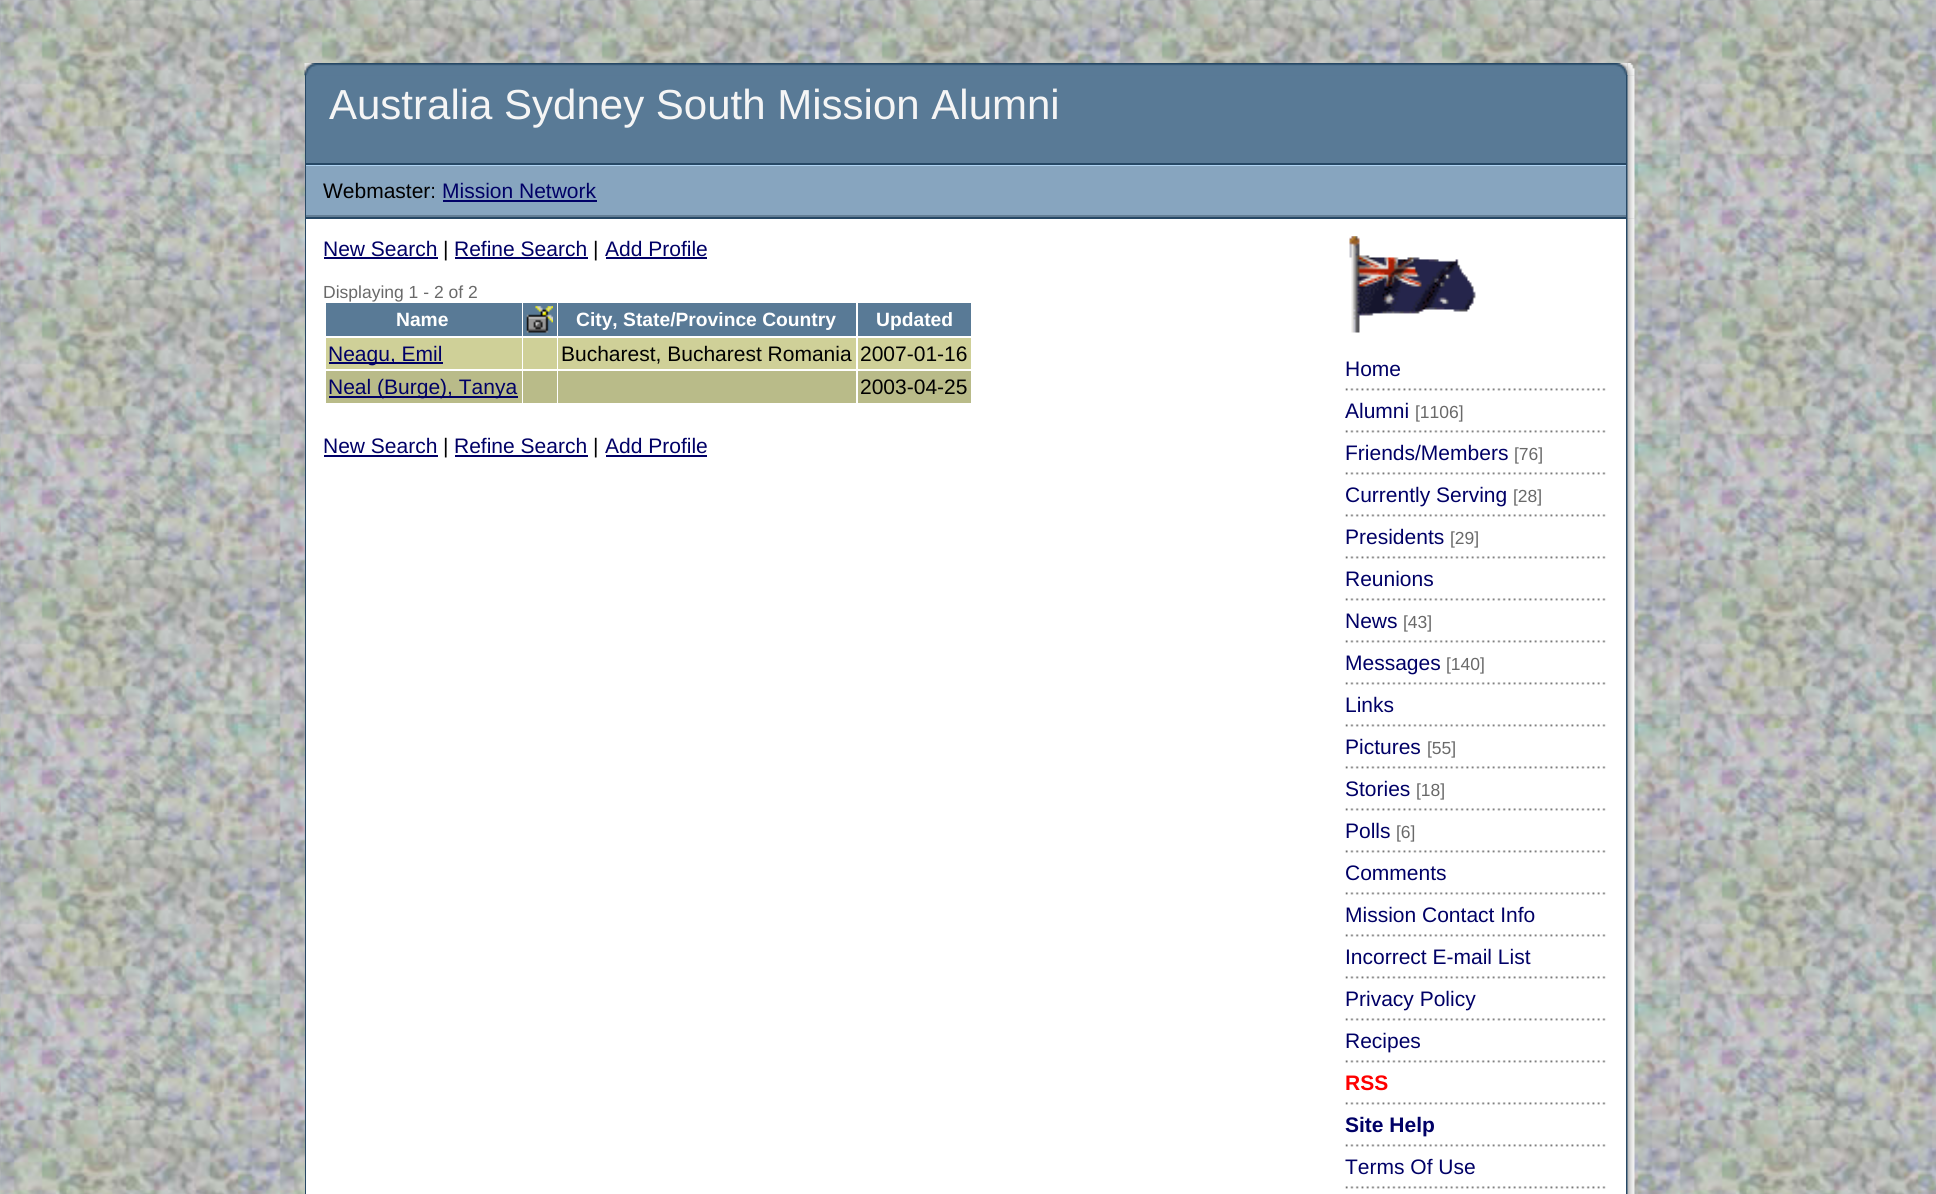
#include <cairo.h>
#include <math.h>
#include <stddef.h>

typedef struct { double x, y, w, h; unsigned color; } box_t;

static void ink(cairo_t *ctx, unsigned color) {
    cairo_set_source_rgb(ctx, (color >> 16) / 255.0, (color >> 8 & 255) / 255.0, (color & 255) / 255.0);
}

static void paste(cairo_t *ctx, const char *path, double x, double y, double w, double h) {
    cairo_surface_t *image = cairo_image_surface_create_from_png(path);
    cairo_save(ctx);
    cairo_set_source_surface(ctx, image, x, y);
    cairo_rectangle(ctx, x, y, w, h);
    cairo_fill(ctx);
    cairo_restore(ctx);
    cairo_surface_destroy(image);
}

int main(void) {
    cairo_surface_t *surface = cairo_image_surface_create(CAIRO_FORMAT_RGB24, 1936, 1194);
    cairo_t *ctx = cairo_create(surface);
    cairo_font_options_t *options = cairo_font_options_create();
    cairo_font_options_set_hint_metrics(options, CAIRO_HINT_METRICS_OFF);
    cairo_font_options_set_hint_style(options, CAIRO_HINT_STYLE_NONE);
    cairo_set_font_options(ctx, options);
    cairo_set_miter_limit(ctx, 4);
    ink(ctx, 0xFFFFFF);
    cairo_paint(ctx);
    paste(ctx, "media/1.png", 0, 0, 1936, 1194);
    {
        static const box_t items[] = {
            {305, 75, 1, 1119, 0x264865},
            {1626, 75, 2, 1119, 0x264865},
            {306, 75, 1320, 88, 0x597A96},
        };
        for (size_t i = 0; i < sizeof items / sizeof *items; i++) {
            ink(ctx, items[i].color);
            cairo_rectangle(ctx, items[i].x, items[i].y, items[i].w, items[i].h);
            cairo_fill(ctx);
        }
    }
    paste(ctx, "media/4.png", 1627, 75, 8, 144);
    paste(ctx, "media/2.png", 304, 63, 1324, 13);
    paste(ctx, "media/3.png", 1627, 63, 8, 13);
    cairo_select_font_face(ctx, "Liberation Sans", CAIRO_FONT_SLANT_NORMAL, CAIRO_FONT_WEIGHT_NORMAL);
    cairo_set_font_size(ctx, 42);
    ink(ctx, 0xF5F5F5);
    cairo_move_to(ctx, 329, 119);
    cairo_show_text(ctx, "Australia Sydney South Mission Alumni");
    {
        static const box_t items[] = {
            {306, 163, 1320, 2, 0x264865},
            {306, 165, 1320, 1, 0xAFD3F2},
            {306, 166, 1320, 49, 0x87A5BF},
        };
        for (size_t i = 0; i < sizeof items / sizeof *items; i++) {
            ink(ctx, items[i].color);
            cairo_rectangle(ctx, items[i].x, items[i].y, items[i].w, items[i].h);
            cairo_fill(ctx);
        }
    }
    cairo_set_font_size(ctx, 21);
    ink(ctx, 0x000000);
    cairo_move_to(ctx, 323, 198);
    cairo_show_text(ctx, "Webmaster:");
    ink(ctx, 0x000066);
    cairo_move_to(ctx, 442, 198);
    cairo_show_text(ctx, "Mission Network");
    {
        static const box_t items[] = {
            {443, 200, 154, 2, 0x000066},
            {306, 215, 1320, 2, 0x637E95},
            {306, 217, 1320, 2, 0x264865},
            {306, 219, 1320, 975, 0xFFFFFF},
        };
        for (size_t i = 0; i < sizeof items / sizeof *items; i++) {
            ink(ctx, items[i].color);
            cairo_rectangle(ctx, items[i].x, items[i].y, items[i].w, items[i].h);
            cairo_fill(ctx);
        }
    }
    ink(ctx, 0x000066);
    cairo_move_to(ctx, 323, 256);
    cairo_show_text(ctx, "New Search");
    cairo_rectangle(ctx, 324, 257, 114, 2);
    cairo_fill(ctx);
    ink(ctx, 0x000000);
    cairo_move_to(ctx, 443, 256);
    cairo_show_text(ctx, "|");
    ink(ctx, 0x000066);
    cairo_move_to(ctx, 454, 256);
    cairo_show_text(ctx, "Refine Search");
    cairo_rectangle(ctx, 455, 257, 133, 2);
    cairo_fill(ctx);
    ink(ctx, 0x000000);
    cairo_move_to(ctx, 593, 256);
    cairo_show_text(ctx, "|");
    ink(ctx, 0x000066);
    cairo_move_to(ctx, 605, 256);
    cairo_show_text(ctx, "Add Profile");
    cairo_rectangle(ctx, 606, 257, 101, 2);
    cairo_fill(ctx);
    cairo_set_font_size(ctx, 17.5);
    ink(ctx, 0x696969);
    cairo_move_to(ctx, 323, 298);
    cairo_show_text(ctx, "Displaying 1 - 2 of 2");
    ink(ctx, 0x597A96);
    cairo_rectangle(ctx, 326, 303, 196, 33);
    cairo_fill(ctx);
    cairo_select_font_face(ctx, "Liberation Sans", CAIRO_FONT_SLANT_NORMAL, CAIRO_FONT_WEIGHT_BOLD);
    cairo_set_font_size(ctx, 19.25);
    ink(ctx, 0xFFFFFF);
    cairo_move_to(ctx, 396, 326);
    cairo_show_text(ctx, "Name");
    ink(ctx, 0x597A96);
    cairo_rectangle(ctx, 523, 303, 34, 33);
    cairo_fill(ctx);
    paste(ctx, "media/5.png", 526, 306, 27, 27);
    cairo_rectangle(ctx, 558, 303, 298, 33);
    cairo_fill(ctx);
    ink(ctx, 0xFFFFFF);
    cairo_move_to(ctx, 576, 326);
    cairo_show_text(ctx, "City, State/Province Country");
    ink(ctx, 0x597A96);
    cairo_rectangle(ctx, 858, 303, 113, 33);
    cairo_fill(ctx);
    ink(ctx, 0xFFFFFF);
    cairo_move_to(ctx, 876, 326);
    cairo_show_text(ctx, "Updated");
    ink(ctx, 0xCFD098);
    cairo_rectangle(ctx, 326, 338, 196, 31);
    cairo_fill(ctx);
    ink(ctx, 0x000066);
    cairo_rectangle(ctx, 329, 362, 114, 2);
    cairo_fill(ctx);
    cairo_select_font_face(ctx, "Liberation Sans", CAIRO_FONT_SLANT_NORMAL, CAIRO_FONT_WEIGHT_NORMAL);
    cairo_set_font_size(ctx, 21);
    cairo_move_to(ctx, 328, 361);
    cairo_show_text(ctx, "Neagu, Emil");
    ink(ctx, 0xCFD098);
    cairo_rectangle(ctx, 523, 338, 34, 31);
    cairo_fill(ctx);
    cairo_rectangle(ctx, 558, 338, 298, 31);
    cairo_fill(ctx);
    ink(ctx, 0x000000);
    cairo_move_to(ctx, 561, 361);
    cairo_show_text(ctx, "Bucharest, Bucharest Romania");
    ink(ctx, 0xCFD098);
    cairo_rectangle(ctx, 858, 338, 113, 31);
    cairo_fill(ctx);
    ink(ctx, 0x000000);
    cairo_move_to(ctx, 860, 361);
    cairo_show_text(ctx, "2007-01-16");
    ink(ctx, 0xB9BB89);
    cairo_rectangle(ctx, 326, 371, 196, 32);
    cairo_fill(ctx);
    ink(ctx, 0x000066);
    cairo_rectangle(ctx, 329, 396, 189, 2);
    cairo_fill(ctx);
    cairo_move_to(ctx, 328, 394);
    cairo_show_text(ctx, "Neal (Burge), Tanya");
    {
        static const box_t items[] = {
            {523, 371, 34, 32, 0xB9BB89},
            {558, 371, 298, 32, 0xB9BB89},
            {858, 371, 113, 32, 0xB9BB89},
        };
        for (size_t i = 0; i < sizeof items / sizeof *items; i++) {
            ink(ctx, items[i].color);
            cairo_rectangle(ctx, items[i].x, items[i].y, items[i].w, items[i].h);
            cairo_fill(ctx);
        }
    }
    ink(ctx, 0x000000);
    cairo_move_to(ctx, 860, 394);
    cairo_show_text(ctx, "2003-04-25");
    ink(ctx, 0x000066);
    cairo_move_to(ctx, 323, 453);
    cairo_show_text(ctx, "New Search");
    cairo_rectangle(ctx, 324, 455, 114, 2);
    cairo_fill(ctx);
    ink(ctx, 0x000000);
    cairo_move_to(ctx, 443, 453);
    cairo_show_text(ctx, "|");
    ink(ctx, 0x000066);
    cairo_move_to(ctx, 454, 453);
    cairo_show_text(ctx, "Refine Search");
    cairo_rectangle(ctx, 455, 455, 133, 2);
    cairo_fill(ctx);
    ink(ctx, 0x000000);
    cairo_move_to(ctx, 593, 453);
    cairo_show_text(ctx, "|");
    ink(ctx, 0x000066);
    cairo_move_to(ctx, 605, 453);
    cairo_show_text(ctx, "Add Profile");
    cairo_rectangle(ctx, 606, 455, 101, 2);
    cairo_fill(ctx);
    paste(ctx, "media/6.png", 1349, 236, 127, 97);
    cairo_move_to(ctx, 1345, 376);
    cairo_show_text(ctx, "Home");
    paste(ctx, "media/7.png", 1345, 388, 261, 3);
    cairo_move_to(ctx, 1345, 418);
    cairo_show_text(ctx, "Alumni");
    cairo_set_font_size(ctx, 17.5);
    ink(ctx, 0x696969);
    cairo_move_to(ctx, 1415, 418);
    cairo_show_text(ctx, "[1106]");
    paste(ctx, "media/7.png", 1345, 430, 261, 3);
    cairo_set_font_size(ctx, 21);
    ink(ctx, 0x000066);
    cairo_move_to(ctx, 1345, 460);
    cairo_show_text(ctx, "Friends/Members");
    cairo_set_font_size(ctx, 17.5);
    ink(ctx, 0x696969);
    cairo_move_to(ctx, 1514, 460);
    cairo_show_text(ctx, "[76]");
    paste(ctx, "media/7.png", 1345, 472, 261, 3);
    cairo_set_font_size(ctx, 21);
    ink(ctx, 0x000066);
    cairo_move_to(ctx, 1345, 502);
    cairo_show_text(ctx, "Currently Serving");
    cairo_set_font_size(ctx, 17.5);
    ink(ctx, 0x696969);
    cairo_move_to(ctx, 1513, 502);
    cairo_show_text(ctx, "[28]");
    paste(ctx, "media/7.png", 1345, 514, 261, 3);
    cairo_set_font_size(ctx, 21);
    ink(ctx, 0x000066);
    cairo_move_to(ctx, 1345, 544);
    cairo_show_text(ctx, "Presidents");
    cairo_set_font_size(ctx, 17.5);
    ink(ctx, 0x696969);
    cairo_move_to(ctx, 1450, 544);
    cairo_show_text(ctx, "[29]");
    paste(ctx, "media/7.png", 1345, 556, 261, 3);
    cairo_set_font_size(ctx, 21);
    ink(ctx, 0x000066);
    cairo_move_to(ctx, 1345, 586);
    cairo_show_text(ctx, "Reunions");
    paste(ctx, "media/7.png", 1345, 598, 261, 3);
    cairo_move_to(ctx, 1345, 628);
    cairo_show_text(ctx, "News");
    cairo_set_font_size(ctx, 17.5);
    ink(ctx, 0x696969);
    cairo_move_to(ctx, 1403, 628);
    cairo_show_text(ctx, "[43]");
    paste(ctx, "media/7.png", 1345, 640, 261, 3);
    cairo_set_font_size(ctx, 21);
    ink(ctx, 0x000066);
    cairo_move_to(ctx, 1345, 670);
    cairo_show_text(ctx, "Messages");
    cairo_set_font_size(ctx, 17.5);
    ink(ctx, 0x696969);
    cairo_move_to(ctx, 1446, 670);
    cairo_show_text(ctx, "[140]");
    paste(ctx, "media/7.png", 1345, 682, 261, 3);
    cairo_set_font_size(ctx, 21);
    ink(ctx, 0x000066);
    cairo_move_to(ctx, 1345, 712);
    cairo_show_text(ctx, "Links");
    paste(ctx, "media/7.png", 1345, 724, 261, 3);
    cairo_move_to(ctx, 1345, 754);
    cairo_show_text(ctx, "Pictures");
    cairo_set_font_size(ctx, 17.5);
    ink(ctx, 0x696969);
    cairo_move_to(ctx, 1427, 754);
    cairo_show_text(ctx, "[55]");
    paste(ctx, "media/7.png", 1345, 766, 261, 3);
    cairo_set_font_size(ctx, 21);
    ink(ctx, 0x000066);
    cairo_move_to(ctx, 1345, 796);
    cairo_show_text(ctx, "Stories");
    cairo_set_font_size(ctx, 17.5);
    ink(ctx, 0x696969);
    cairo_move_to(ctx, 1416, 796);
    cairo_show_text(ctx, "[18]");
    paste(ctx, "media/7.png", 1345, 808, 261, 3);
    cairo_set_font_size(ctx, 21);
    ink(ctx, 0x000066);
    cairo_move_to(ctx, 1345, 838);
    cairo_show_text(ctx, "Polls");
    cairo_set_font_size(ctx, 17.5);
    ink(ctx, 0x696969);
    cairo_move_to(ctx, 1396, 838);
    cairo_show_text(ctx, "[6]");
    paste(ctx, "media/7.png", 1345, 850, 261, 3);
    cairo_set_font_size(ctx, 21);
    ink(ctx, 0x000066);
    cairo_move_to(ctx, 1345, 880);
    cairo_show_text(ctx, "Comments");
    paste(ctx, "media/7.png", 1345, 892, 261, 3);
    cairo_move_to(ctx, 1345, 922);
    cairo_show_text(ctx, "Mission Contact Info");
    paste(ctx, "media/7.png", 1345, 934, 261, 3);
    cairo_move_to(ctx, 1345, 964);
    cairo_show_text(ctx, "Incorrect E-mail List");
    paste(ctx, "media/7.png", 1345, 976, 261, 3);
    cairo_move_to(ctx, 1345, 1006);
    cairo_show_text(ctx, "Privacy Policy");
    paste(ctx, "media/7.png", 1345, 1018, 261, 3);
    cairo_move_to(ctx, 1345, 1048);
    cairo_show_text(ctx, "Recipes");
    paste(ctx, "media/7.png", 1345, 1060, 261, 3);
    cairo_select_font_face(ctx, "Liberation Sans", CAIRO_FONT_SLANT_NORMAL, CAIRO_FONT_WEIGHT_BOLD);
    ink(ctx, 0xFF0000);
    cairo_move_to(ctx, 1345, 1090);
    cairo_show_text(ctx, "RSS");
    paste(ctx, "media/7.png", 1345, 1102, 261, 3);
    ink(ctx, 0x000066);
    cairo_move_to(ctx, 1345, 1132);
    cairo_show_text(ctx, "Site Help");
    paste(ctx, "media/7.png", 1345, 1144, 261, 3);
    cairo_select_font_face(ctx, "Liberation Sans", CAIRO_FONT_SLANT_NORMAL, CAIRO_FONT_WEIGHT_NORMAL);
    cairo_move_to(ctx, 1345, 1174);
    cairo_show_text(ctx, "Terms Of Use");
    paste(ctx, "media/7.png", 1345, 1186, 261, 3);
    paste(ctx, "media/8.png", 1627, 218, 8, 976);
    cairo_surface_write_to_png(surface, "image.png");
    cairo_font_options_destroy(options);
    cairo_destroy(ctx);
    cairo_surface_destroy(surface);
    return 0;
}
